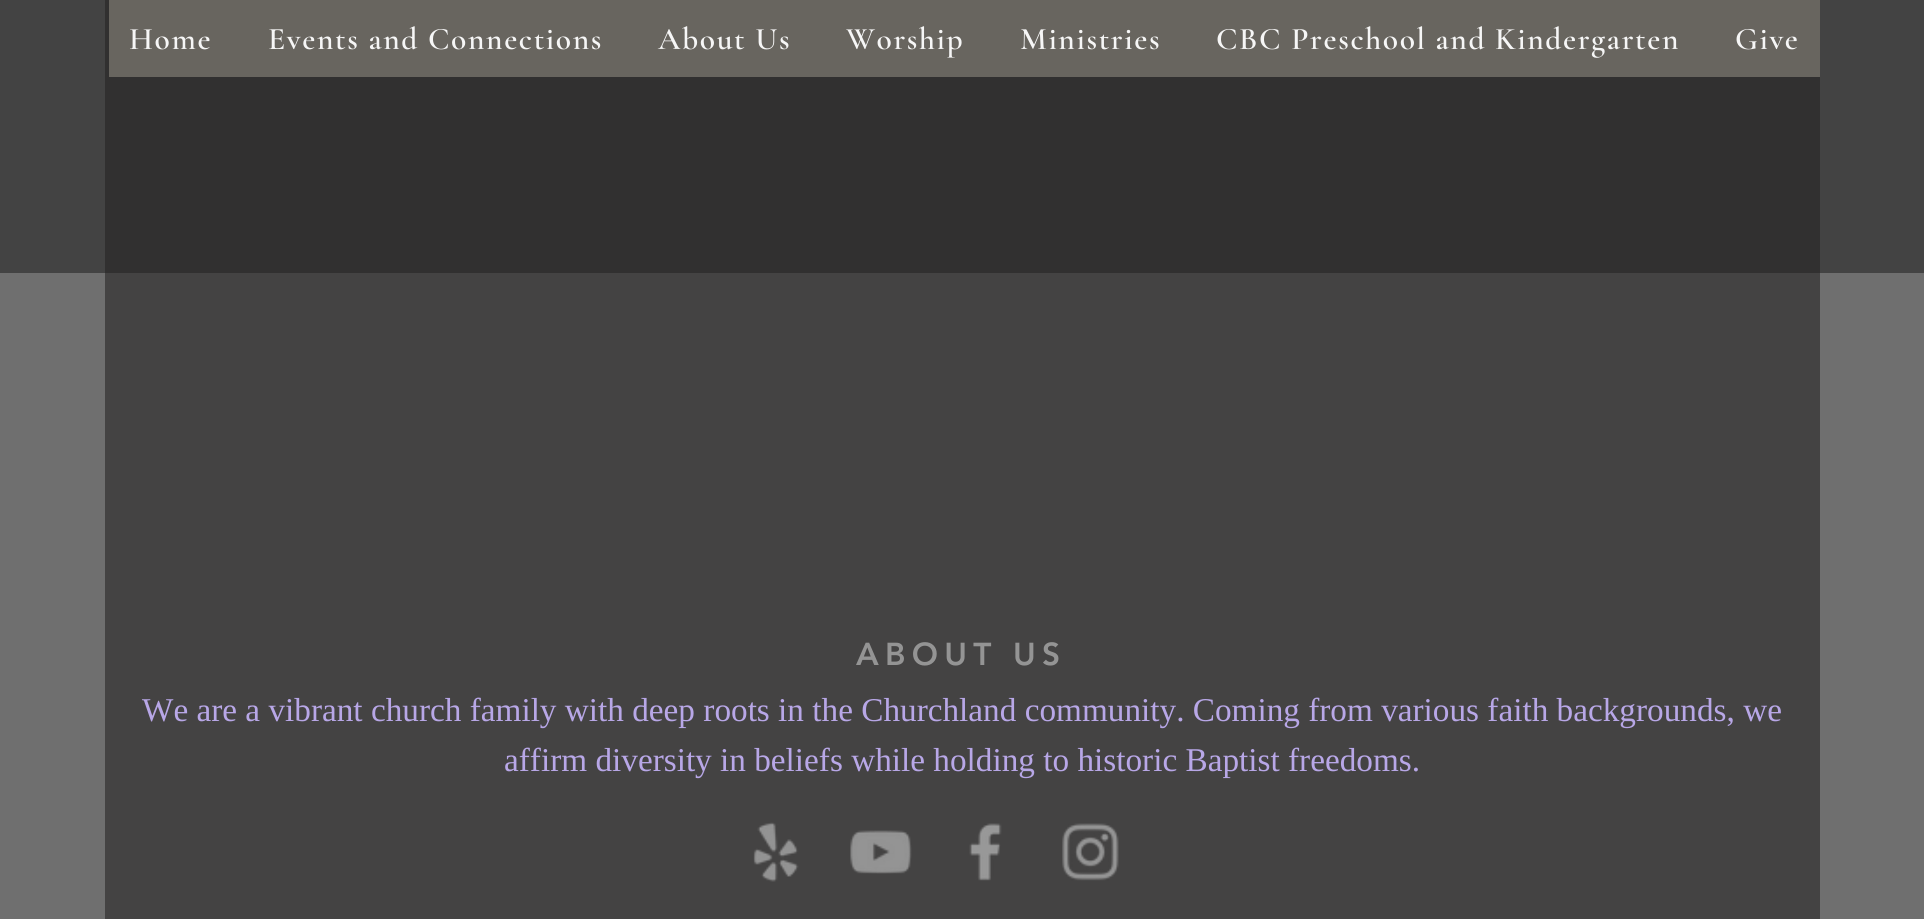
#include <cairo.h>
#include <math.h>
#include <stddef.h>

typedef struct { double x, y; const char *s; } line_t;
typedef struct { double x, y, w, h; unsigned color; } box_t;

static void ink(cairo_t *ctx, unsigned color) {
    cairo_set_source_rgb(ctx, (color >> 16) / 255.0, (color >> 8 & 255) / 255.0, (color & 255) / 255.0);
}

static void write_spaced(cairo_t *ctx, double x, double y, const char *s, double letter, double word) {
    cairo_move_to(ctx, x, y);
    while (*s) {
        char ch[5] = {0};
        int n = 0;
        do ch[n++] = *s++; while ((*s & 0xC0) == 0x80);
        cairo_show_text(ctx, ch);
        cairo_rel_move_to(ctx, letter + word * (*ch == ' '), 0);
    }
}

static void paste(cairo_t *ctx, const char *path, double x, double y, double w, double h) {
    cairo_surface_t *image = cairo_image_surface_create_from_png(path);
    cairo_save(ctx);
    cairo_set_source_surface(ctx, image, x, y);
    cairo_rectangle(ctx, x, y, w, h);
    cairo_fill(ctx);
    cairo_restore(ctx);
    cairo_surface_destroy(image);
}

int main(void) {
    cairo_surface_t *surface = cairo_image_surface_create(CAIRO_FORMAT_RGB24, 1924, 919);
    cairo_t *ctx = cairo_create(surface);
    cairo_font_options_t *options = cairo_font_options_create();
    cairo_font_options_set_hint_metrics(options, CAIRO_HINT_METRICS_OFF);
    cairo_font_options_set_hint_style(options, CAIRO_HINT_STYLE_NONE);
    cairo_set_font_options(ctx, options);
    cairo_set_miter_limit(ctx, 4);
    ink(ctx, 0x6F6F6F);
    cairo_paint(ctx);
    {
        static const box_t items[] = {
            {0, 0, 1924, 273, 0x434343},
            {105, 0, 1715, 273, 0x313030},
            {109, 0, 1711, 77, 0x68655F},
        };
        for (size_t i = 0; i < sizeof items / sizeof *items; i++) {
            ink(ctx, items[i].color);
            cairo_rectangle(ctx, items[i].x, items[i].y, items[i].w, items[i].h);
            cairo_fill(ctx);
        }
    }
    cairo_select_font_face(ctx, "Cormorant Garamond SemiBold", CAIRO_FONT_SLANT_NORMAL, CAIRO_FONT_WEIGHT_NORMAL);
    cairo_set_font_size(ctx, 31.5);
    ink(ctx, 0xF6F6F6);
    {
        static const line_t items[] = {
            {129, 49, "Home"},
            {268, 49, "Events and Connections"},
            {658, 49, "About Us"},
            {846, 49, "Worship"},
            {1020, 49, "Ministries"},
            {1216, 49, "CBC Preschool and Kindergarten"},
            {1735, 49, "Give"},
        };
        for (size_t i = 0; i < sizeof items / sizeof *items; i++) {
            write_spaced(ctx, items[i].x, items[i].y, items[i].s, 1.6, 0);
        }
    }
    ink(ctx, 0x444343);
    cairo_rectangle(ctx, 105, 273, 1715, 646);
    cairo_fill(ctx);
    cairo_select_font_face(ctx, "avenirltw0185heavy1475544 Black", CAIRO_FONT_SLANT_NORMAL, CAIRO_FONT_WEIGHT_NORMAL);
    ink(ctx, 0x949494);
    write_spaced(ctx, 856, 665, "ABOUT US", 6.25, 0);
    cairo_select_font_face(ctx, "Liberation Serif", CAIRO_FONT_SLANT_NORMAL, CAIRO_FONT_WEIGHT_NORMAL);
    cairo_set_font_size(ctx, 33.25);
    ink(ctx, 0xB8A7E7);
    cairo_move_to(ctx, 142, 721);
    cairo_show_text(ctx, "We are a vibrant church family with deep roots in the Churchland community. Coming from various faith backgrounds, we");
    cairo_move_to(ctx, 504, 771);
    cairo_show_text(ctx, "affirm diversity in beliefs while holding to historic Baptist freedoms.");
    paste(ctx, "media/1.png", 753, 822, 46, 60);
    paste(ctx, "media/2.png", 850, 830, 62, 44);
    paste(ctx, "media/3.png", 969, 823, 33, 58);
    paste(ctx, "media/4.png", 1062, 823, 57, 58);
    cairo_surface_write_to_png(surface, "image.png");
    cairo_font_options_destroy(options);
    cairo_destroy(ctx);
    cairo_surface_destroy(surface);
    return 0;
}
